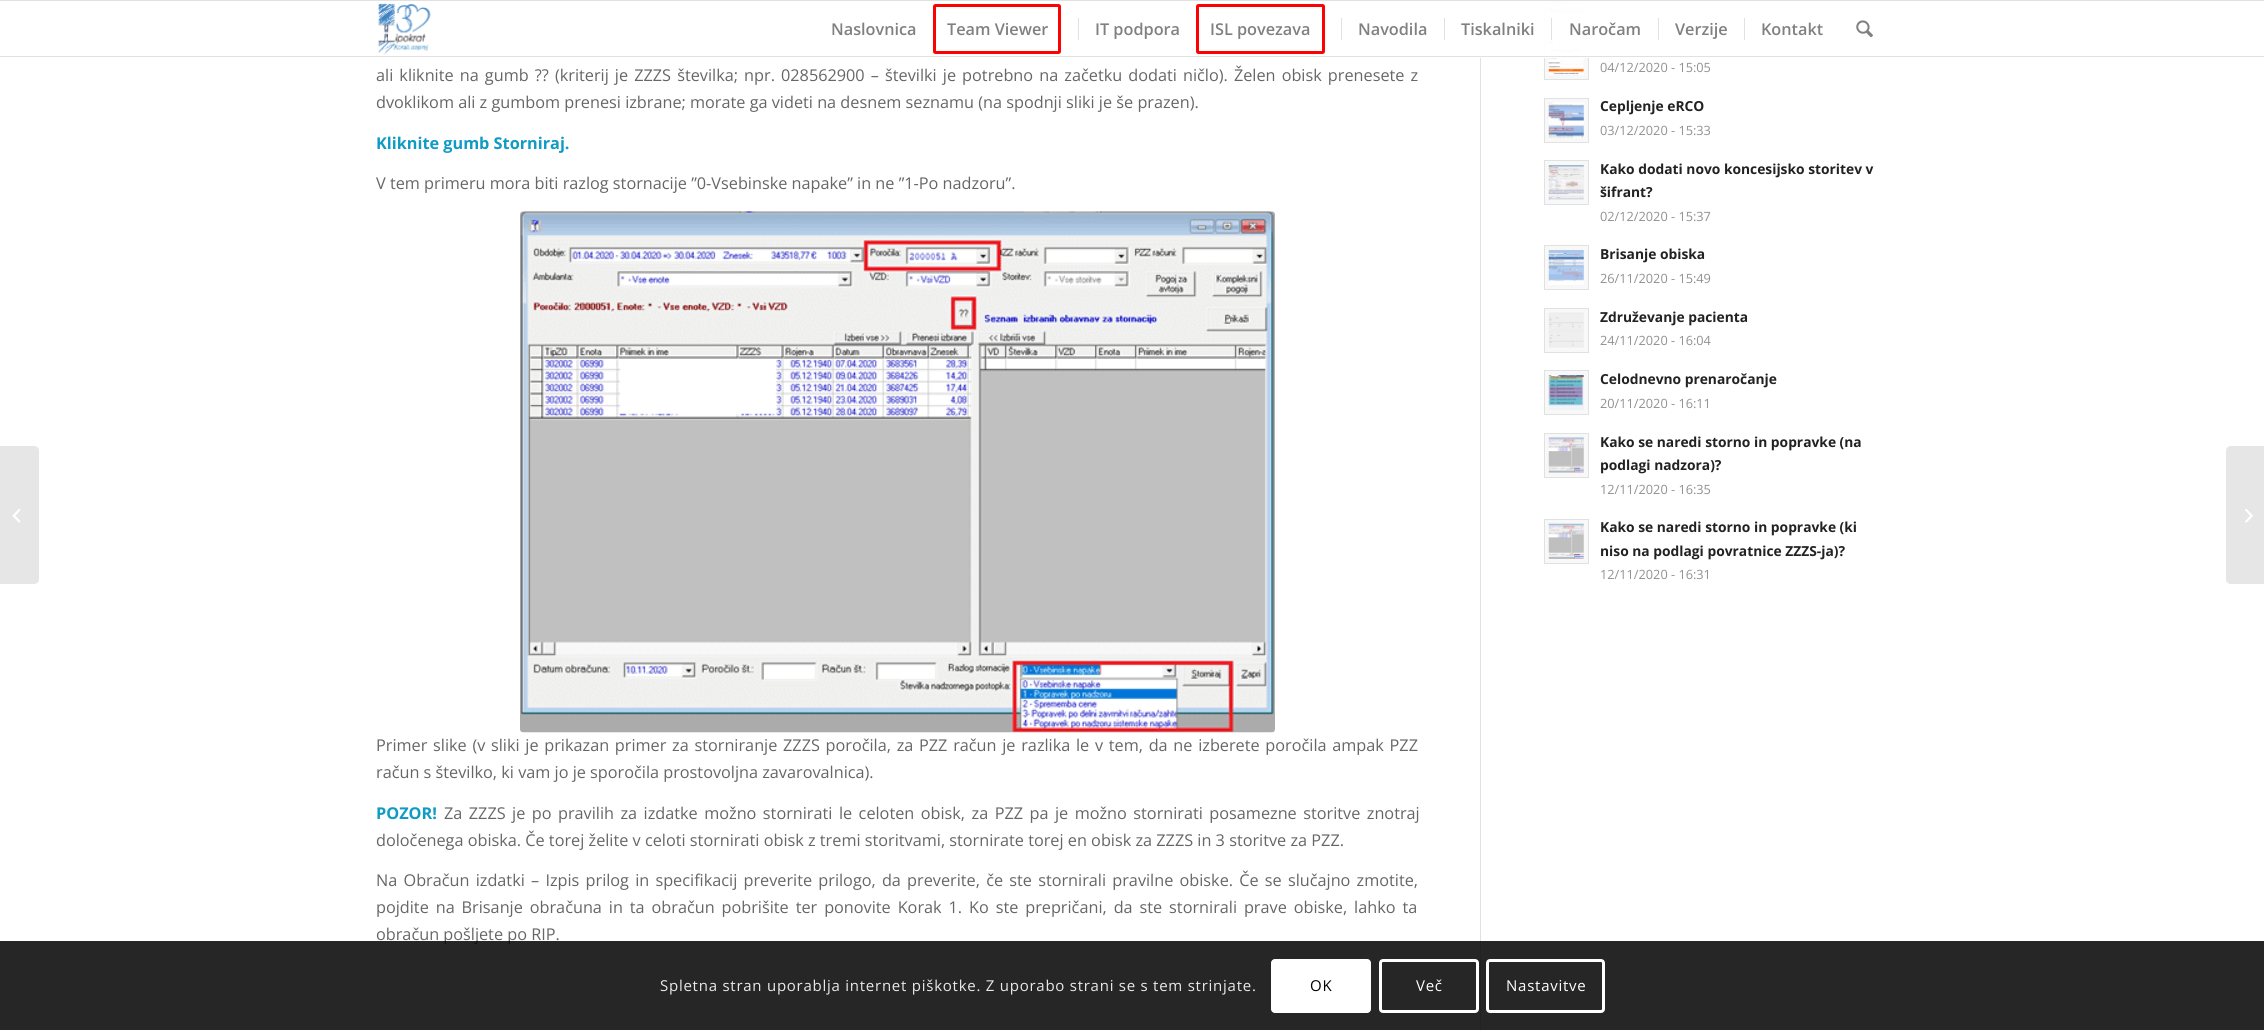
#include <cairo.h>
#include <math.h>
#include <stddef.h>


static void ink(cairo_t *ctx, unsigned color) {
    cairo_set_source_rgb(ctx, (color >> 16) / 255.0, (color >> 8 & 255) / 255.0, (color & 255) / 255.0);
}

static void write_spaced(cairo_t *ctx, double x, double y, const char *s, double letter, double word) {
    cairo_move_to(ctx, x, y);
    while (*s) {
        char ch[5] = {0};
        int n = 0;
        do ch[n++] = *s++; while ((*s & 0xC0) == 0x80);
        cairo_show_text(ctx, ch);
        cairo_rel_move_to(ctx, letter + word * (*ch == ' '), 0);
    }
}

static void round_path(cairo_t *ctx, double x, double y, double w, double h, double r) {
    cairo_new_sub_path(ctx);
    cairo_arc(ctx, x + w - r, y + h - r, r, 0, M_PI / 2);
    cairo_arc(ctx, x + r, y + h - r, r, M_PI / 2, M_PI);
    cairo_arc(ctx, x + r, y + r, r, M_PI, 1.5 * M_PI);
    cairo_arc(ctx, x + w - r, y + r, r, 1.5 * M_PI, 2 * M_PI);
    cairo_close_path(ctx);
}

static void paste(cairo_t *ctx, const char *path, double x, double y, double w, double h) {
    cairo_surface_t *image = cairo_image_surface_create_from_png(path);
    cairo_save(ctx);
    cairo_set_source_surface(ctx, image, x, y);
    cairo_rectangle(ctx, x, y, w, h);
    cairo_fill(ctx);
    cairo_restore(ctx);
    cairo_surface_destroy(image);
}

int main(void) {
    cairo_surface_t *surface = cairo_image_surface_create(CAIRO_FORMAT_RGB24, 2264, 1030);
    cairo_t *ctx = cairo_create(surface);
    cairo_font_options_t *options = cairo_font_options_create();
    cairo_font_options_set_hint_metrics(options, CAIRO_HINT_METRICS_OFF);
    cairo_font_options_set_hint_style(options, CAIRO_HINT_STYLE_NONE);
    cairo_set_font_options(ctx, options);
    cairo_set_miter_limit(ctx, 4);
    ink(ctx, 0xFFFFFF);
    cairo_paint(ctx);
    ink(ctx, 0xE1E1E1);
    cairo_rectangle(ctx, 1480, 0, 1, 1030);
    cairo_fill(ctx);
    ink(ctx, 0xF8F8F8);
    cairo_rectangle(ctx, 1545, 1, 43, 16);
    cairo_fill(ctx);
    cairo_rectangle(ctx, 1544.5, -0.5, 44, 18);
    ink(ctx, 0xE1E1E1);
    cairo_set_line_width(ctx, 1);
    cairo_stroke(ctx);
    paste(ctx, "media/5.png", 1548, 1, 36, 12);
    ink(ctx, 0xF8F8F8);
    cairo_rectangle(ctx, 1544.5, 35.5, 44, 44);
    cairo_fill_preserve(ctx);
    ink(ctx, 0xE1E1E1);
    cairo_stroke(ctx);
    paste(ctx, "media/6.png", 1548, 40, 36, 35);
    cairo_set_source_rgba(ctx, 1, 1, 1, 0.95);
    cairo_rectangle(ctx, 1480, 1, 109, 57);
    cairo_fill(ctx);
    ink(ctx, 0xE1E1E1);
    cairo_rectangle(ctx, 0, 0, 2264, 1);
    cairo_fill(ctx);
    cairo_rectangle(ctx, 0, 56, 2264, 1);
    cairo_fill(ctx);
    paste(ctx, "media/1.png", 378, 3, 53, 52);
    cairo_select_font_face(ctx, "Open Sans SemiBold", CAIRO_FONT_SLANT_NORMAL, CAIRO_FONT_WEIGHT_NORMAL);
    cairo_set_font_size(ctx, 16.25);
    ink(ctx, 0x808080);
    cairo_move_to(ctx, 831, 35);
    cairo_show_text(ctx, "Naslovnica");
    round_path(ctx, 934.5, 5.5, 125, 47, 1);
    ink(ctx, 0xFC0303);
    cairo_set_line_width(ctx, 3);
    cairo_stroke(ctx);
    ink(ctx, 0x808080);
    cairo_move_to(ctx, 947, 35);
    cairo_show_text(ctx, "Team Viewer");
    cairo_move_to(ctx, 1095, 35);
    cairo_show_text(ctx, "IT podpora");
    ink(ctx, 0xE1E1E1);
    cairo_rectangle(ctx, 1078, 18, 1, 22);
    cairo_fill(ctx);
    round_path(ctx, 1197.5, 5.5, 126, 47, 1);
    ink(ctx, 0xFC0303);
    cairo_stroke(ctx);
    ink(ctx, 0x808080);
    cairo_move_to(ctx, 1210, 35);
    cairo_show_text(ctx, "ISL povezava");
    cairo_move_to(ctx, 1358, 35);
    cairo_show_text(ctx, "Navodila");
    ink(ctx, 0xE1E1E1);
    cairo_rectangle(ctx, 1341, 18, 1, 22);
    cairo_fill(ctx);
    ink(ctx, 0x808080);
    cairo_move_to(ctx, 1461, 35);
    cairo_show_text(ctx, "Tiskalniki");
    ink(ctx, 0xE1E1E1);
    cairo_rectangle(ctx, 1444, 18, 1, 22);
    cairo_fill(ctx);
    ink(ctx, 0x808080);
    cairo_move_to(ctx, 1569, 35);
    cairo_show_text(ctx, "Naročam");
    ink(ctx, 0xE1E1E1);
    cairo_rectangle(ctx, 1551, 18, 1, 22);
    cairo_fill(ctx);
    ink(ctx, 0x808080);
    cairo_move_to(ctx, 1675, 35);
    cairo_show_text(ctx, "Verzije");
    ink(ctx, 0xE1E1E1);
    cairo_rectangle(ctx, 1658, 18, 1, 22);
    cairo_fill(ctx);
    ink(ctx, 0x808080);
    cairo_move_to(ctx, 1761, 35);
    cairo_show_text(ctx, "Kontakt");
    ink(ctx, 0xE1E1E1);
    cairo_rectangle(ctx, 1744, 18, 1, 22);
    cairo_fill(ctx);
    paste(ctx, "media/2.png", 1856, 20, 17, 18);
    ink(ctx, 0xE6E6E6);
    cairo_new_path(ctx);
    cairo_move_to(ctx, 0, 446);
    cairo_line_to(ctx, 34, 446);
    cairo_curve_to(ctx, 37, 446, 39, 448, 39, 451);
    cairo_line_to(ctx, 39, 579);
    cairo_curve_to(ctx, 39, 582, 37, 584, 34, 584);
    cairo_line_to(ctx, 0, 584);
    cairo_close_path(ctx);
    cairo_fill(ctx);
    paste(ctx, "media/3.png", 12, 509, 9, 14);
    cairo_select_font_face(ctx, "Open Sans", CAIRO_FONT_SLANT_NORMAL, CAIRO_FONT_WEIGHT_NORMAL);
    ink(ctx, 0x666666);
    write_spaced(ctx, 376, 81, "ali kliknite na gumb ?\077 (kriterij je ZZZS številka; npr. 028562900 – številki je potrebno na začetku dodati ničlo). Želen obisk prenesete z", 0, 1.9);
    cairo_move_to(ctx, 376, 108);
    cairo_show_text(ctx, "dvoklikom ali z gumbom prenesi izbrane; morate ga videti na desnem seznamu (na spodnji sliki je še prazen).");
    cairo_select_font_face(ctx, "Open Sans", CAIRO_FONT_SLANT_NORMAL, CAIRO_FONT_WEIGHT_BOLD);
    ink(ctx, 0x109BC5);
    cairo_move_to(ctx, 376, 149);
    cairo_show_text(ctx, "Kliknite gumb Storniraj.");
    cairo_select_font_face(ctx, "Open Sans", CAIRO_FONT_SLANT_NORMAL, CAIRO_FONT_WEIGHT_NORMAL);
    ink(ctx, 0x666666);
    cairo_move_to(ctx, 376, 189);
    cairo_show_text(ctx, "V tem primeru mora biti razlog stornacije ”0-Vsebinske napake” in ne ”1-Po nadzoru”.");
    paste(ctx, "media/4.png", 520, 211, 755, 522);
    write_spaced(ctx, 376, 751, "Primer slike (v sliki je prikazan primer za storniranje ZZZS poročila, za PZZ račun je razlika le v tem, da ne izberete poročila ampak PZZ", 0, 1.5);
    cairo_move_to(ctx, 376, 778);
    cairo_show_text(ctx, "račun s številko, ki vam jo je sporočila prostovoljna zavarovalnica).");
    cairo_select_font_face(ctx, "Open Sans", CAIRO_FONT_SLANT_NORMAL, CAIRO_FONT_WEIGHT_BOLD);
    ink(ctx, 0x109BC5);
    cairo_move_to(ctx, 376, 819);
    cairo_show_text(ctx, "POZOR!");
    cairo_select_font_face(ctx, "Open Sans", CAIRO_FONT_SLANT_NORMAL, CAIRO_FONT_WEIGHT_NORMAL);
    ink(ctx, 0x666666);
    write_spaced(ctx, 444, 819, "Za ZZZS je po pravilih za izdatke možno stornirati le celoten obisk, za PZZ pa je možno stornirati posamezne storitve znotraj", 0, 2.25);
    cairo_move_to(ctx, 376, 846);
    cairo_show_text(ctx, "določenega obiska. Če torej želite v celoti stornirati obisk z tremi storitvami, stornirate torej en obisk za ZZZS in 3 storitve za PZZ.");
    write_spaced(ctx, 376, 886, "Na Obračun izdatki – Izpis prilog in specifikacij preverite prilogo, da preverite, če ste stornirali pravilne obiske. Če se slučajno zmotite,", 0, 2);
    write_spaced(ctx, 376, 913, "pojdite na Brisanje obračuna in ta obračun pobrišite ter ponovite Korak 1. Ko ste prepričani, da ste stornirali prave obiske, lahko ta", 0, 2.7);
    cairo_move_to(ctx, 376, 940);
    cairo_show_text(ctx, "obračun pošljete po RIP.");
    cairo_set_font_size(ctx, 12.75);
    ink(ctx, 0x919191);
    cairo_move_to(ctx, 1600, 72);
    cairo_show_text(ctx, "04/12/2020 - 15:05");
    ink(ctx, 0xF8F8F8);
    cairo_rectangle(ctx, 1544.5, 98.5, 44, 44);
    cairo_fill_preserve(ctx);
    ink(ctx, 0xE1E1E1);
    cairo_set_line_width(ctx, 1);
    cairo_stroke(ctx);
    paste(ctx, "media/7.png", 1548, 102, 36, 36);
    cairo_select_font_face(ctx, "Open Sans", CAIRO_FONT_SLANT_NORMAL, CAIRO_FONT_WEIGHT_BOLD);
    cairo_set_font_size(ctx, 13.8);
    ink(ctx, 0x222222);
    cairo_move_to(ctx, 1600, 111);
    cairo_show_text(ctx, "Cepljenje eRCO");
    cairo_select_font_face(ctx, "Open Sans", CAIRO_FONT_SLANT_NORMAL, CAIRO_FONT_WEIGHT_NORMAL);
    cairo_set_font_size(ctx, 12.75);
    ink(ctx, 0x919191);
    cairo_move_to(ctx, 1600, 135);
    cairo_show_text(ctx, "03/12/2020 - 15:33");
    ink(ctx, 0xF8F8F8);
    cairo_rectangle(ctx, 1544.5, 160.5, 44, 44);
    cairo_fill_preserve(ctx);
    ink(ctx, 0xE1E1E1);
    cairo_stroke(ctx);
    paste(ctx, "media/8.png", 1548, 165, 36, 35);
    cairo_select_font_face(ctx, "Open Sans", CAIRO_FONT_SLANT_NORMAL, CAIRO_FONT_WEIGHT_BOLD);
    cairo_set_font_size(ctx, 13.8);
    ink(ctx, 0x222222);
    cairo_move_to(ctx, 1600, 174);
    cairo_show_text(ctx, "Kako dodati novo koncesijsko storitev v");
    cairo_move_to(ctx, 1600, 197);
    cairo_show_text(ctx, "šifrant?");
    cairo_select_font_face(ctx, "Open Sans", CAIRO_FONT_SLANT_NORMAL, CAIRO_FONT_WEIGHT_NORMAL);
    cairo_set_font_size(ctx, 12.75);
    ink(ctx, 0x919191);
    cairo_move_to(ctx, 1600, 221);
    cairo_show_text(ctx, "02/12/2020 - 15:37");
    ink(ctx, 0xF8F8F8);
    cairo_rectangle(ctx, 1544.5, 245.5, 44, 44);
    cairo_fill_preserve(ctx);
    ink(ctx, 0xE1E1E1);
    cairo_stroke(ctx);
    paste(ctx, "media/9.png", 1548, 250, 36, 35);
    cairo_select_font_face(ctx, "Open Sans", CAIRO_FONT_SLANT_NORMAL, CAIRO_FONT_WEIGHT_BOLD);
    cairo_set_font_size(ctx, 13.8);
    ink(ctx, 0x222222);
    cairo_move_to(ctx, 1600, 259);
    cairo_show_text(ctx, "Brisanje obiska");
    cairo_select_font_face(ctx, "Open Sans", CAIRO_FONT_SLANT_NORMAL, CAIRO_FONT_WEIGHT_NORMAL);
    cairo_set_font_size(ctx, 12.75);
    ink(ctx, 0x919191);
    cairo_move_to(ctx, 1600, 283);
    cairo_show_text(ctx, "26/11/2020 - 15:49");
    ink(ctx, 0xF8F8F8);
    cairo_rectangle(ctx, 1544.5, 308.5, 44, 44);
    cairo_fill_preserve(ctx);
    ink(ctx, 0xE1E1E1);
    cairo_stroke(ctx);
    paste(ctx, "media/10.png", 1548, 312, 36, 36);
    cairo_select_font_face(ctx, "Open Sans", CAIRO_FONT_SLANT_NORMAL, CAIRO_FONT_WEIGHT_BOLD);
    cairo_set_font_size(ctx, 13.8);
    ink(ctx, 0x222222);
    cairo_move_to(ctx, 1600, 322);
    cairo_show_text(ctx, "Združevanje pacienta");
    cairo_select_font_face(ctx, "Open Sans", CAIRO_FONT_SLANT_NORMAL, CAIRO_FONT_WEIGHT_NORMAL);
    cairo_set_font_size(ctx, 12.75);
    ink(ctx, 0x919191);
    cairo_move_to(ctx, 1600, 345);
    cairo_show_text(ctx, "24/11/2020 - 16:04");
    ink(ctx, 0xF8F8F8);
    cairo_rectangle(ctx, 1544.5, 370.5, 44, 44);
    cairo_fill_preserve(ctx);
    ink(ctx, 0xE1E1E1);
    cairo_stroke(ctx);
    paste(ctx, "media/11.png", 1548, 375, 36, 35);
    cairo_select_font_face(ctx, "Open Sans", CAIRO_FONT_SLANT_NORMAL, CAIRO_FONT_WEIGHT_BOLD);
    cairo_set_font_size(ctx, 13.8);
    ink(ctx, 0x222222);
    cairo_move_to(ctx, 1600, 384);
    cairo_show_text(ctx, "Celodnevno prenaročanje");
    cairo_select_font_face(ctx, "Open Sans", CAIRO_FONT_SLANT_NORMAL, CAIRO_FONT_WEIGHT_NORMAL);
    cairo_set_font_size(ctx, 12.75);
    ink(ctx, 0x919191);
    cairo_move_to(ctx, 1600, 408);
    cairo_show_text(ctx, "20/11/2020 - 16:11");
    ink(ctx, 0xF8F8F8);
    cairo_rectangle(ctx, 1544.5, 433.5, 44, 44);
    cairo_fill_preserve(ctx);
    ink(ctx, 0xE1E1E1);
    cairo_stroke(ctx);
    paste(ctx, "media/12.png", 1548, 437, 36, 36);
    cairo_select_font_face(ctx, "Open Sans", CAIRO_FONT_SLANT_NORMAL, CAIRO_FONT_WEIGHT_BOLD);
    cairo_set_font_size(ctx, 13.8);
    ink(ctx, 0x222222);
    cairo_move_to(ctx, 1600, 447);
    cairo_show_text(ctx, "Kako se naredi storno in popravke (na");
    cairo_move_to(ctx, 1600, 470);
    cairo_show_text(ctx, "podlagi nadzora)?");
    cairo_select_font_face(ctx, "Open Sans", CAIRO_FONT_SLANT_NORMAL, CAIRO_FONT_WEIGHT_NORMAL);
    cairo_set_font_size(ctx, 12.75);
    ink(ctx, 0x919191);
    cairo_move_to(ctx, 1600, 494);
    cairo_show_text(ctx, "12/11/2020 - 16:35");
    ink(ctx, 0xF8F8F8);
    cairo_rectangle(ctx, 1544.5, 519.5, 44, 44);
    cairo_fill_preserve(ctx);
    ink(ctx, 0xE1E1E1);
    cairo_stroke(ctx);
    paste(ctx, "media/13.png", 1548, 523, 36, 36);
    cairo_select_font_face(ctx, "Open Sans", CAIRO_FONT_SLANT_NORMAL, CAIRO_FONT_WEIGHT_BOLD);
    cairo_set_font_size(ctx, 13.8);
    ink(ctx, 0x222222);
    cairo_move_to(ctx, 1600, 532);
    cairo_show_text(ctx, "Kako se naredi storno in popravke (ki");
    cairo_move_to(ctx, 1600, 556);
    cairo_show_text(ctx, "niso na podlagi povratnice ZZZS-ja)?");
    cairo_select_font_face(ctx, "Open Sans", CAIRO_FONT_SLANT_NORMAL, CAIRO_FONT_WEIGHT_NORMAL);
    cairo_set_font_size(ctx, 12.75);
    ink(ctx, 0x919191);
    cairo_move_to(ctx, 1600, 579);
    cairo_show_text(ctx, "12/11/2020 - 16:31");
    ink(ctx, 0xE6E6E6);
    cairo_new_path(ctx);
    cairo_move_to(ctx, 2231, 446);
    cairo_line_to(ctx, 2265, 446);
    cairo_line_to(ctx, 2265, 584);
    cairo_line_to(ctx, 2231, 584);
    cairo_curve_to(ctx, 2228, 584, 2226, 582, 2226, 579);
    cairo_line_to(ctx, 2226, 451);
    cairo_curve_to(ctx, 2226, 448, 2228, 446, 2231, 446);
    cairo_close_path(ctx);
    cairo_fill(ctx);
    paste(ctx, "media/14.png", 2245, 509, 8, 14);
    cairo_set_source_rgba(ctx, 0, 0, 0, 0.85);
    cairo_rectangle(ctx, 0, 941, 2264, 89);
    cairo_fill(ctx);
    cairo_set_font_size(ctx, 15);
    ink(ctx, 0xE9E9E9);
    write_spaced(ctx, 660, 991, "Spletna stran uporablja internet piškotke. Z uporabo strani se s tem strinjate.", 0.75, 0);
    ink(ctx, 0xFFFFFF);
    round_path(ctx, 1271, 959, 100, 54, 4);
    cairo_fill(ctx);
    ink(ctx, 0x000000);
    write_spaced(ctx, 1310, 991, "OK", 0.75, 0);
    round_path(ctx, 1380.5, 960.5, 97, 51, 2.5);
    ink(ctx, 0xFFFFFF);
    cairo_set_line_width(ctx, 3);
    cairo_stroke(ctx);
    write_spaced(ctx, 1416, 991, "Več", 0.75, 0);
    round_path(ctx, 1487.5, 960.5, 116, 51, 2.5);
    cairo_stroke(ctx);
    write_spaced(ctx, 1506, 991, "Nastavitve", 0.75, 0);
    cairo_surface_write_to_png(surface, "image.png");
    cairo_font_options_destroy(options);
    cairo_destroy(ctx);
    cairo_surface_destroy(surface);
    return 0;
}
